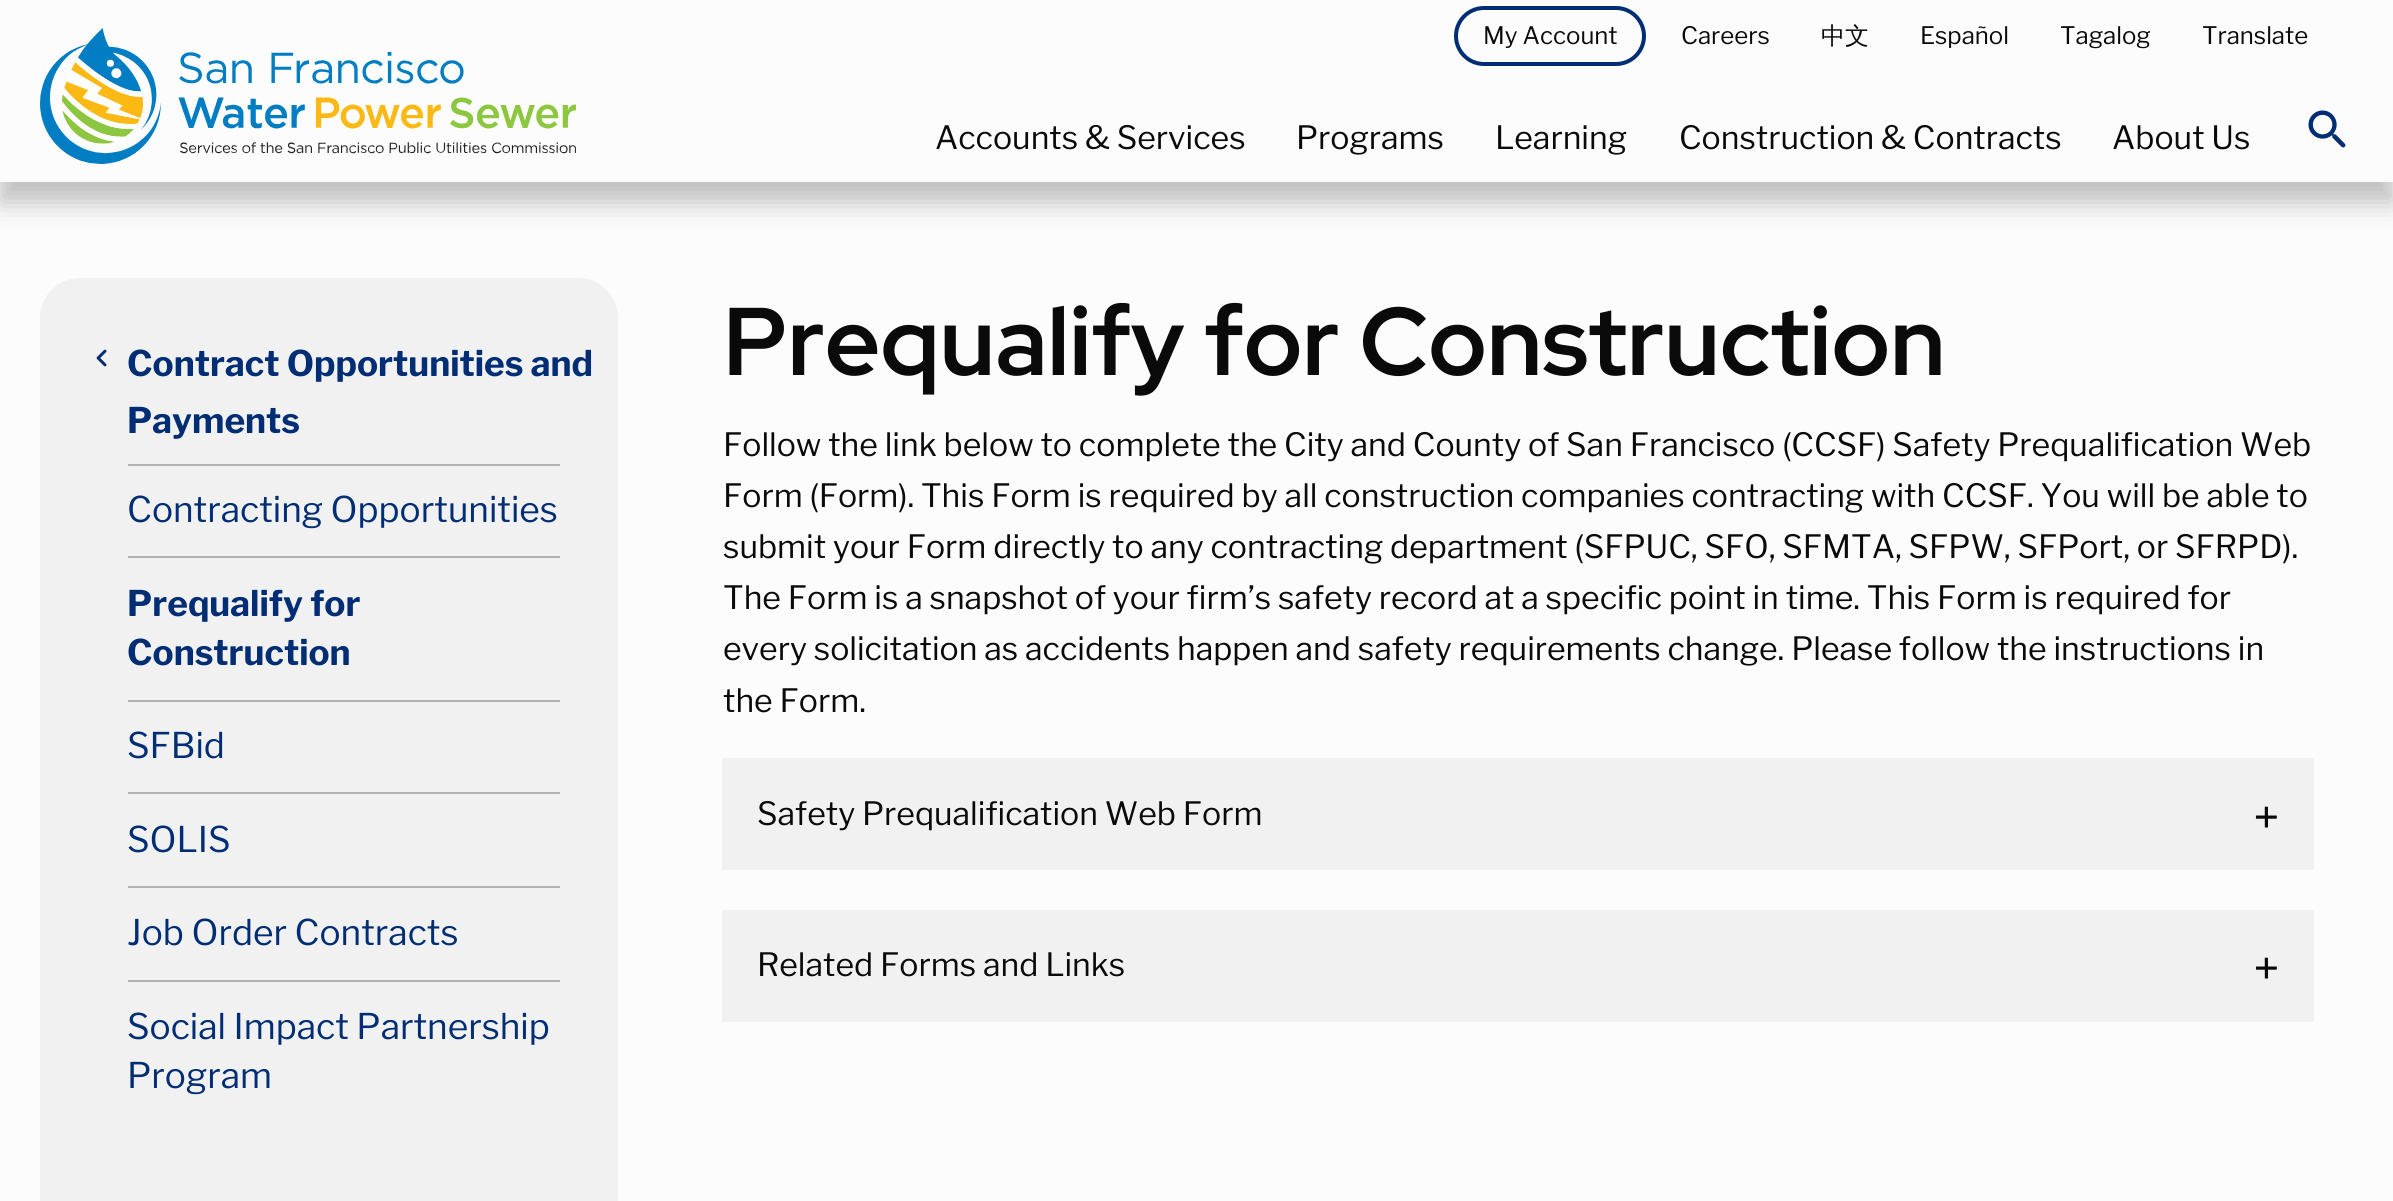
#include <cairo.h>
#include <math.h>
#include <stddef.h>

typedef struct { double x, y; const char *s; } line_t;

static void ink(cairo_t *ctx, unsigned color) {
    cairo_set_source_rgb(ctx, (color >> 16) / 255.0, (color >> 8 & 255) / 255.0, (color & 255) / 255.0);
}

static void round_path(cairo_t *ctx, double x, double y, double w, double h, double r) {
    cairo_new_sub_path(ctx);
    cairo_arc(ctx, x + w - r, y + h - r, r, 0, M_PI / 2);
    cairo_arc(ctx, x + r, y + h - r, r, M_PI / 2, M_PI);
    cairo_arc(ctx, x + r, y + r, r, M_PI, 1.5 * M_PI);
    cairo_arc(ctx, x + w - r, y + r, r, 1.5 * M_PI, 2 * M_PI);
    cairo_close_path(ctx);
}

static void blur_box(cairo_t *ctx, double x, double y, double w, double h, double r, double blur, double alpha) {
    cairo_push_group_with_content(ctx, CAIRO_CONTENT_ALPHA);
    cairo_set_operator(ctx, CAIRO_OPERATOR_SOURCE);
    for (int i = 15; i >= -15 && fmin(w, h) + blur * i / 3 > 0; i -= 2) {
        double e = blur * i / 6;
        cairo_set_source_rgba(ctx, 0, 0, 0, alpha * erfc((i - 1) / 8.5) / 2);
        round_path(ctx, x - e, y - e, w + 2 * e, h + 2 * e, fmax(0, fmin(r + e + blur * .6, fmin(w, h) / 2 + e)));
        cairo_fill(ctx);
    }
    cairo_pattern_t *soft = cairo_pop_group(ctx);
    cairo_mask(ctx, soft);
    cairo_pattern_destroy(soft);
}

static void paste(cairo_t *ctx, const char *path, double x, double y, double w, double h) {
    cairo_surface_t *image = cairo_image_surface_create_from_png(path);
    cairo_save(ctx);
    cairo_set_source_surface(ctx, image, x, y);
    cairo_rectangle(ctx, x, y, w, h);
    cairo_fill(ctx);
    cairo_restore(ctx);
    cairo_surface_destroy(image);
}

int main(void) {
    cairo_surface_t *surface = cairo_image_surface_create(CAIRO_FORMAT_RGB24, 2393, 1201);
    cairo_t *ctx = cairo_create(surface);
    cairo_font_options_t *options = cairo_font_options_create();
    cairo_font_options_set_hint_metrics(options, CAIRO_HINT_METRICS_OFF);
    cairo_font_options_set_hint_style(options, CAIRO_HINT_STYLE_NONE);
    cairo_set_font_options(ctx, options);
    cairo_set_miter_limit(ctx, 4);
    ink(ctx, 0xFCFCFC);
    cairo_paint(ctx);
    ink(ctx, 0x000000);
    blur_box(ctx, 0, 20, 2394, 182, 0, 13, 0.25);
    ink(ctx, 0xFCFCFC);
    cairo_rectangle(ctx, 0, 0, 2393, 182);
    cairo_fill(ctx);
    paste(ctx, "media/1.png", 40, 28, 536, 136);
    round_path(ctx, 1456, 8, 188, 56, 28);
    ink(ctx, 0x002D74);
    cairo_set_line_width(ctx, 4);
    cairo_stroke(ctx);
    cairo_select_font_face(ctx, "Libre Franklin", CAIRO_FONT_SLANT_NORMAL, CAIRO_FONT_WEIGHT_NORMAL);
    cairo_set_font_size(ctx, 24);
    ink(ctx, 0x0A0A0A);
    cairo_move_to(ctx, 1483, 44);
    cairo_show_text(ctx, "My Account");
    cairo_move_to(ctx, 1681, 44);
    cairo_show_text(ctx, "Careers");
    cairo_select_font_face(ctx, "WenQuanYi Zen Hei Medium", CAIRO_FONT_SLANT_NORMAL, CAIRO_FONT_WEIGHT_NORMAL);
    cairo_move_to(ctx, 1821, 44);
    cairo_show_text(ctx, "中文");
    cairo_select_font_face(ctx, "Libre Franklin", CAIRO_FONT_SLANT_NORMAL, CAIRO_FONT_WEIGHT_NORMAL);
    {
        static const line_t items[] = {
            {1920, 44, "Español"},
            {2060, 44, "Tagalog"},
            {2202, 44, "Translate"},
        };
        for (size_t i = 0; i < sizeof items / sizeof *items; i++) {
            cairo_move_to(ctx, items[i].x, items[i].y);
            cairo_show_text(ctx, items[i].s);
        }
    }
    cairo_set_font_size(ctx, 32);
    {
        static const line_t items[] = {
            {935, 149, "Accounts & Services"},
            {1296, 149, "Programs"},
            {1495, 149, "Learning"},
            {1679, 149, "Construction & Contracts"},
            {2112, 149, "About Us"},
        };
        for (size_t i = 0; i < sizeof items / sizeof *items; i++) {
            cairo_move_to(ctx, items[i].x, items[i].y);
            cairo_show_text(ctx, items[i].s);
        }
    }
    paste(ctx, "media/2.png", 2308, 110, 38, 38);
    ink(ctx, 0xF1F1F1);
    round_path(ctx, 40, 278, 578, 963, 40);
    cairo_fill(ctx);
    paste(ctx, "media/3.png", 96, 349, 11, 18);
    cairo_select_font_face(ctx, "Libre Franklin", CAIRO_FONT_SLANT_NORMAL, CAIRO_FONT_WEIGHT_BOLD);
    cairo_set_font_size(ctx, 35.25);
    ink(ctx, 0x002D74);
    cairo_move_to(ctx, 127, 376);
    cairo_show_text(ctx, "Contract Opportunities and");
    cairo_move_to(ctx, 127, 433);
    cairo_show_text(ctx, "Payments");
    ink(ctx, 0xB1B1B1);
    cairo_rectangle(ctx, 128, 464, 432, 2);
    cairo_fill(ctx);
    cairo_select_font_face(ctx, "Libre Franklin", CAIRO_FONT_SLANT_NORMAL, CAIRO_FONT_WEIGHT_NORMAL);
    ink(ctx, 0x002D74);
    cairo_move_to(ctx, 127, 522);
    cairo_show_text(ctx, "Contracting Opportunities");
    ink(ctx, 0xB1B1B1);
    cairo_rectangle(ctx, 128, 556, 432, 2);
    cairo_fill(ctx);
    cairo_select_font_face(ctx, "Libre Franklin", CAIRO_FONT_SLANT_NORMAL, CAIRO_FONT_WEIGHT_BOLD);
    ink(ctx, 0x002D74);
    cairo_move_to(ctx, 127, 616);
    cairo_show_text(ctx, "Prequalify for");
    cairo_move_to(ctx, 127, 665);
    cairo_show_text(ctx, "Construction");
    ink(ctx, 0xB1B1B1);
    cairo_rectangle(ctx, 128, 700, 432, 2);
    cairo_fill(ctx);
    cairo_select_font_face(ctx, "Libre Franklin", CAIRO_FONT_SLANT_NORMAL, CAIRO_FONT_WEIGHT_NORMAL);
    ink(ctx, 0x002D74);
    cairo_move_to(ctx, 127, 758);
    cairo_show_text(ctx, "SFBid");
    ink(ctx, 0xB1B1B1);
    cairo_rectangle(ctx, 128, 792, 432, 2);
    cairo_fill(ctx);
    ink(ctx, 0x002D74);
    cairo_move_to(ctx, 127, 852);
    cairo_show_text(ctx, "SOLIS");
    ink(ctx, 0xB1B1B1);
    cairo_rectangle(ctx, 128, 886, 432, 2);
    cairo_fill(ctx);
    ink(ctx, 0x002D74);
    cairo_move_to(ctx, 127, 945);
    cairo_show_text(ctx, "Job Order Contracts");
    ink(ctx, 0xB1B1B1);
    cairo_rectangle(ctx, 128, 980, 432, 2);
    cairo_fill(ctx);
    ink(ctx, 0x002D74);
    cairo_move_to(ctx, 127, 1039);
    cairo_show_text(ctx, "Social Impact Partnership");
    cairo_move_to(ctx, 127, 1088);
    cairo_show_text(ctx, "Program");
    cairo_select_font_face(ctx, "Red Hat Display", CAIRO_FONT_SLANT_NORMAL, CAIRO_FONT_WEIGHT_BOLD);
    cairo_set_font_size(ctx, 96);
    ink(ctx, 0x0A0A0A);
    cairo_move_to(ctx, 723, 375);
    cairo_show_text(ctx, "Prequalify for Construction");
    cairo_select_font_face(ctx, "Libre Franklin", CAIRO_FONT_SLANT_NORMAL, CAIRO_FONT_WEIGHT_NORMAL);
    cairo_set_font_size(ctx, 32);
    {
        static const line_t items[] = {
            {723, 456, "Follow the link below to complete the City and County of San Francisco (CCSF) Safety Prequalification Web"},
            {723, 507, "Form (Form). This Form is required by all construction companies contracting with CCSF. You will be able to"},
            {723, 558, "submit your Form directly to any contracting department (SFPUC, SFO, SFMTA, SFPW, SFPort, or SFRPD)."},
            {723, 609, "The Form is a snapshot of your firm’s safety record at a specific point in time. This Form is required for"},
            {723, 660, "every solicitation as accidents happen and safety requirements change. Please follow the instructions in"},
            {723, 712, "the Form."},
        };
        for (size_t i = 0; i < sizeof items / sizeof *items; i++) {
            cairo_move_to(ctx, items[i].x, items[i].y);
            cairo_show_text(ctx, items[i].s);
        }
    }
    ink(ctx, 0xF1F1F1);
    cairo_rectangle(ctx, 722, 758, 1592, 112);
    cairo_fill(ctx);
    ink(ctx, 0x0A0A0A);
    cairo_move_to(ctx, 757, 825);
    cairo_show_text(ctx, "Safety Prequalification Web Form");
    cairo_set_font_size(ctx, 48);
    cairo_move_to(ctx, 2253, 835);
    cairo_show_text(ctx, "+");
    ink(ctx, 0xF1F1F1);
    cairo_rectangle(ctx, 722, 910, 1592, 112);
    cairo_fill(ctx);
    cairo_set_font_size(ctx, 32);
    ink(ctx, 0x0A0A0A);
    cairo_move_to(ctx, 757, 976);
    cairo_show_text(ctx, "Related Forms and Links");
    cairo_set_font_size(ctx, 48);
    cairo_move_to(ctx, 2253, 986);
    cairo_show_text(ctx, "+");
    cairo_surface_write_to_png(surface, "image.png");
    cairo_font_options_destroy(options);
    cairo_destroy(ctx);
    cairo_surface_destroy(surface);
    return 0;
}
